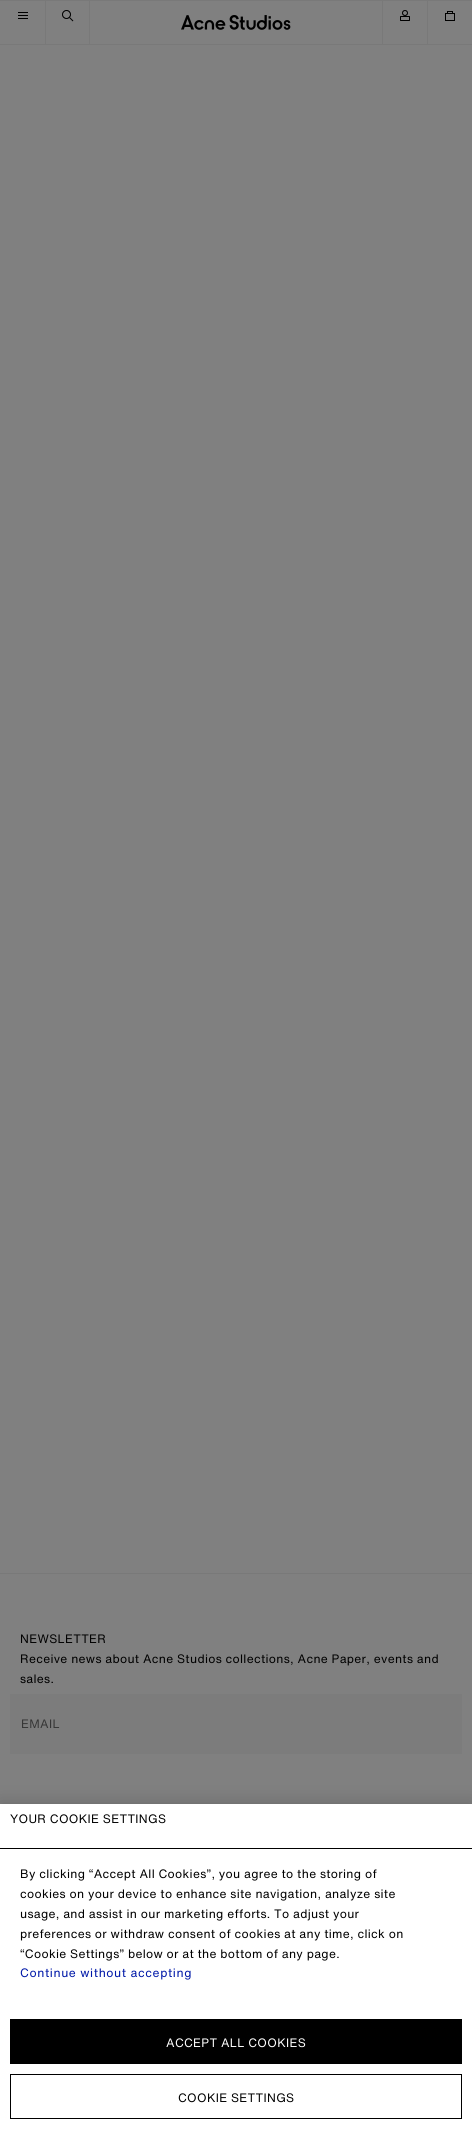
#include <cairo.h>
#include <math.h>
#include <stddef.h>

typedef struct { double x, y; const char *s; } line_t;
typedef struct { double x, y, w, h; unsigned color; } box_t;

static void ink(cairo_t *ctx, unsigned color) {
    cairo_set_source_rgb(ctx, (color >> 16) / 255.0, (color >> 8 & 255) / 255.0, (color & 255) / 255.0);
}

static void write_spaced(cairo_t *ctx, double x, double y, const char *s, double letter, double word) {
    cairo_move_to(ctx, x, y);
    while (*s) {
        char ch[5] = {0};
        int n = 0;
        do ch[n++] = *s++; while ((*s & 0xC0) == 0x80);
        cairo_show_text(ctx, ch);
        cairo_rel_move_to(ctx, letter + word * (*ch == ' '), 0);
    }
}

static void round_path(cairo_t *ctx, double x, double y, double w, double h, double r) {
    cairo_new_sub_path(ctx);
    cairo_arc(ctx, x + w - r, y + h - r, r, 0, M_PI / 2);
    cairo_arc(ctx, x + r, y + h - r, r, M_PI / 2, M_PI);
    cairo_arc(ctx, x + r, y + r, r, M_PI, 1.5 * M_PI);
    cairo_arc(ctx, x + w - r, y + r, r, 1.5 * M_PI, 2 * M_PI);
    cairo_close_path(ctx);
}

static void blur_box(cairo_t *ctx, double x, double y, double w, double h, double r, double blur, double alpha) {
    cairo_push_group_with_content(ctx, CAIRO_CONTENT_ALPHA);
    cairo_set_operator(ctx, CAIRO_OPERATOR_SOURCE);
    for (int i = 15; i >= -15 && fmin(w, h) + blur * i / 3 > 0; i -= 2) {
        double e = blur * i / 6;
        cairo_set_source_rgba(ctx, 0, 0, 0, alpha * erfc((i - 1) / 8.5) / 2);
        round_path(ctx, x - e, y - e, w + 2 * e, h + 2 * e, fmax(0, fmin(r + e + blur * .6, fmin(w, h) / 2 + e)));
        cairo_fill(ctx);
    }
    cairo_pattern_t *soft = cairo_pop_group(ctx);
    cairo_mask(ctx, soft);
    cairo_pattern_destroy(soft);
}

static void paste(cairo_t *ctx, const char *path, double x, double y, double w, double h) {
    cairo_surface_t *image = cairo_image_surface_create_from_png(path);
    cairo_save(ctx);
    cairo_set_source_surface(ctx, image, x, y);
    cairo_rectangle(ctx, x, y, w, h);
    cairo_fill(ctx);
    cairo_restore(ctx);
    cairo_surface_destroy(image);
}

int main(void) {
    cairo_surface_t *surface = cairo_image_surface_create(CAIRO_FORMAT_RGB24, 472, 2129);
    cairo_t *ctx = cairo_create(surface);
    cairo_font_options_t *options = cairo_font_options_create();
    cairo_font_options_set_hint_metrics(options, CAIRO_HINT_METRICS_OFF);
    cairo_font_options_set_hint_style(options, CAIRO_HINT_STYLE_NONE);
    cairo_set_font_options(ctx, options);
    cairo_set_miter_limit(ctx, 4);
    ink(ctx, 0x808080);
    cairo_paint(ctx);
    {
        static const box_t items[] = {
            {0, 44, 472, 1, 0x797979},
            {0, 0, 472, 1, 0x797979},
            {18, 12, 10, 1, 0x000000},
            {18, 15, 10, 1, 0x000000},
            {18, 18, 10, 1, 0x000000},
        };
        for (size_t i = 0; i < sizeof items / sizeof *items; i++) {
            ink(ctx, items[i].color);
            cairo_rectangle(ctx, items[i].x, items[i].y, items[i].w, items[i].h);
            cairo_fill(ctx);
        }
    }
    ink(ctx, 0x797979);
    cairo_new_path(ctx);
    cairo_move_to(ctx, 90, 0);
    cairo_line_to(ctx, 90, 45);
    cairo_line_to(ctx, 89, 44);
    cairo_line_to(ctx, 89, 1);
    cairo_close_path(ctx);
    cairo_move_to(ctx, 45, 45);
    cairo_line_to(ctx, 45, 0);
    cairo_line_to(ctx, 46, 1);
    cairo_line_to(ctx, 46, 44);
    cairo_close_path(ctx);
    cairo_fill(ctx);
    paste(ctx, "media/1.png", 62, 10, 12, 12);
    paste(ctx, "media/2.png", 181, 15, 110, 15);
    cairo_rectangle(ctx, 382, 0, 1, 45);
    cairo_fill(ctx);
    paste(ctx, "media/3.png", 400, 10, 10, 11);
    cairo_rectangle(ctx, 427, 0, 1, 45);
    cairo_fill(ctx);
    paste(ctx, "media/4.png", 445, 11, 10, 10);
    cairo_rectangle(ctx, 0, 1573, 472, 1);
    cairo_fill(ctx);
    cairo_select_font_face(ctx, "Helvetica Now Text", CAIRO_FONT_SLANT_NORMAL, CAIRO_FONT_WEIGHT_NORMAL);
    cairo_set_font_size(ctx, 12);
    ink(ctx, 0x000000);
    {
        static const line_t items[] = {
            {20, 1643, "NEWSLETTER"},
            {20, 1663, "Receive news about Acne Studios collections, Acne Paper, events and"},
            {20, 1683, "sales."},
        };
        for (size_t i = 0; i < sizeof items / sizeof *items; i++) {
            write_spaced(ctx, items[i].x, items[i].y, items[i].s, 0.3, 0);
        }
    }
    ink(ctx, 0x7C7C7C);
    cairo_rectangle(ctx, 10, 1694, 452, 60);
    cairo_fill(ctx);
    ink(ctx, 0x363636);
    write_spaced(ctx, 21, 1728, "EMAIL", 0.3, 0);
    ink(ctx, 0x000000);
    blur_box(ctx, 0, 1804, 472, 325, 0, 9, 0.2);
    ink(ctx, 0xFFFFFF);
    cairo_rectangle(ctx, 0, 1804, 472, 325);
    cairo_fill(ctx);
    ink(ctx, 0x000000);
    cairo_rectangle(ctx, 0, 1848, 472, 1);
    cairo_fill(ctx);
    {
        static const line_t items[] = {
            {10, 1823, "YOUR COOKIE SETTINGS"},
            {20, 1878, "By clicking “Accept All Cookies”, you agree to the storing of"},
            {20, 1898, "cookies on your device to enhance site navigation, analyze site"},
            {20, 1918, "usage, and assist in our marketing efforts. To adjust your"},
            {20, 1938, "preferences or withdraw consent of cookies at any time, click on"},
            {20, 1958, "“Cookie Settings” below or at the bottom of any page."},
        };
        for (size_t i = 0; i < sizeof items / sizeof *items; i++) {
            write_spaced(ctx, items[i].x, items[i].y, items[i].s, 0.3, 0);
        }
    }
    ink(ctx, 0x0018A8);
    write_spaced(ctx, 20, 1977, "Continue without accepting", 0.6, 0);
    ink(ctx, 0x000000);
    cairo_rectangle(ctx, 10, 2019, 452, 45);
    cairo_fill(ctx);
    ink(ctx, 0xFFFFFF);
    write_spaced(ctx, 166, 2047, "ACCEPT ALL COOKIES", 0.3, 0);
    cairo_rectangle(ctx, 10.5, 2074.5, 451, 44);
    ink(ctx, 0x000000);
    cairo_set_line_width(ctx, 1);
    cairo_stroke(ctx);
    write_spaced(ctx, 178, 2102, "COOKIE SETTINGS", 0.3, 0);
    cairo_surface_write_to_png(surface, "image.png");
    cairo_font_options_destroy(options);
    cairo_destroy(ctx);
    cairo_surface_destroy(surface);
    return 0;
}
